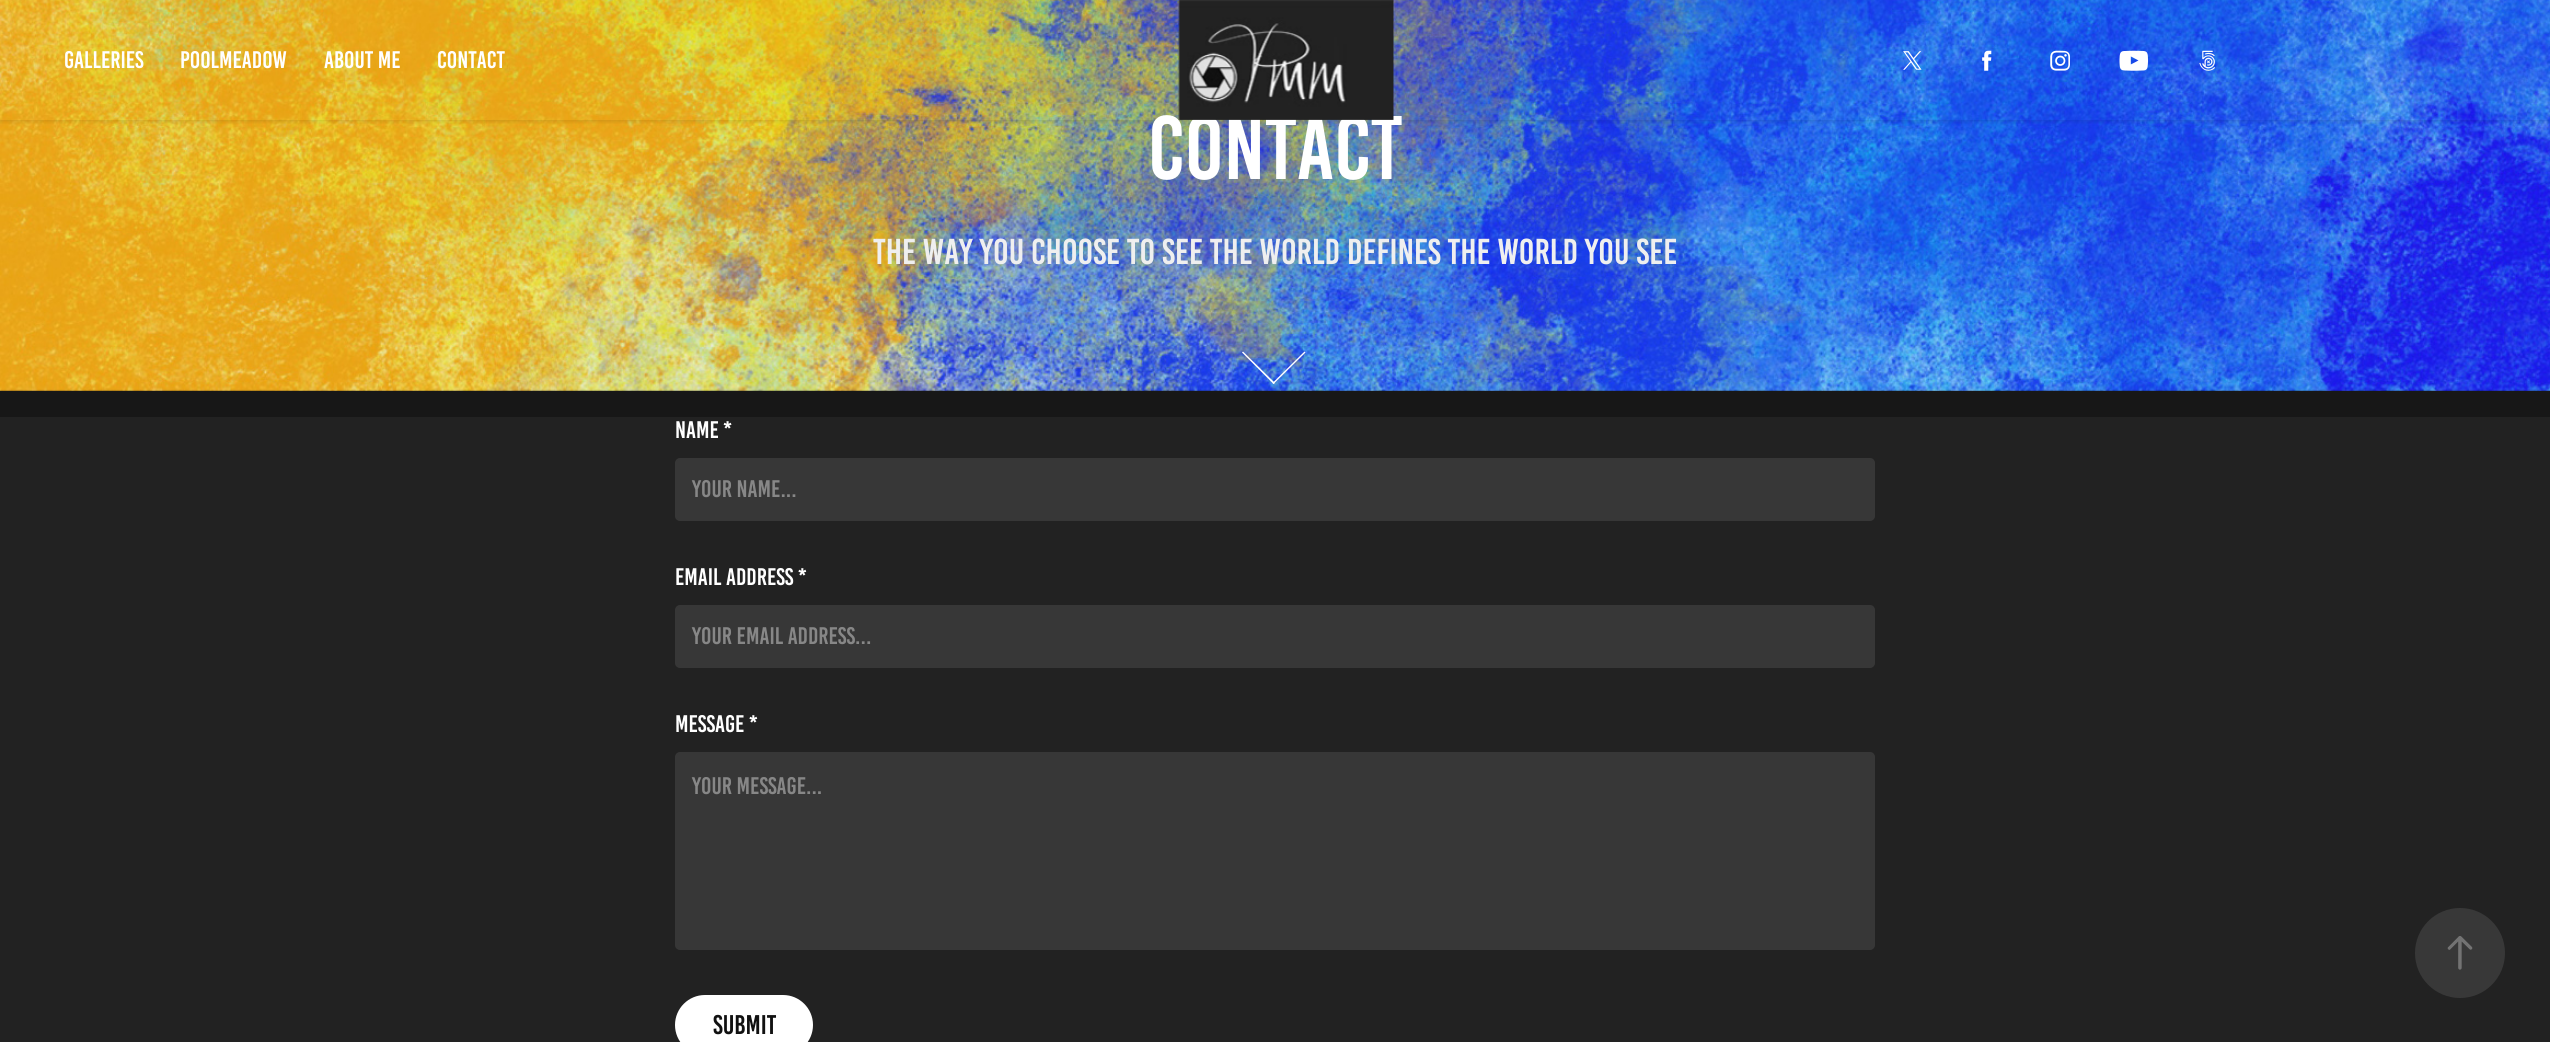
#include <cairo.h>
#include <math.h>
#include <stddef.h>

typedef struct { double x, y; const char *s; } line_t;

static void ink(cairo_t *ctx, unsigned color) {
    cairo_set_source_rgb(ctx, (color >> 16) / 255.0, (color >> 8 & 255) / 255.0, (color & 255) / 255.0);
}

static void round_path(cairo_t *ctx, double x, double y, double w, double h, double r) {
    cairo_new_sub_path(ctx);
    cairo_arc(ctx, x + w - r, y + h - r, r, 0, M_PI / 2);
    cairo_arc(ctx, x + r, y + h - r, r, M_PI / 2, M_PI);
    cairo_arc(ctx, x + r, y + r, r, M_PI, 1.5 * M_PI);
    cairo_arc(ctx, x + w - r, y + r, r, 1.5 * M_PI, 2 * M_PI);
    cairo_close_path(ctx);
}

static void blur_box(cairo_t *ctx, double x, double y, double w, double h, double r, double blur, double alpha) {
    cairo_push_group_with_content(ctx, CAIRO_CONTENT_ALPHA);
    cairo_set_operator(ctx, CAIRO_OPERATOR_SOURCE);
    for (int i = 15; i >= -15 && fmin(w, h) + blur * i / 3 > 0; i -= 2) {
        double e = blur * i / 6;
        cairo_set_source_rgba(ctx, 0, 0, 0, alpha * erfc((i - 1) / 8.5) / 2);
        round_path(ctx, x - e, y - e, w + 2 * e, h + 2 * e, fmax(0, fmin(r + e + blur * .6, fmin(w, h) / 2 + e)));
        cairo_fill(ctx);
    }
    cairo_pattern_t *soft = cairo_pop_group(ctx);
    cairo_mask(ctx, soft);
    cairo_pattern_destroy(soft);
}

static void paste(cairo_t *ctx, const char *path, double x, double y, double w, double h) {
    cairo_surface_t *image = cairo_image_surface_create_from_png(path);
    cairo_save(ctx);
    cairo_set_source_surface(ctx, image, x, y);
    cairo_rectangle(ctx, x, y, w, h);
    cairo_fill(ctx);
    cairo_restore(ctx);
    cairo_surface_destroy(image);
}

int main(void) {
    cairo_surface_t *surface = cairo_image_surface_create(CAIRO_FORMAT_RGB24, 2550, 1042);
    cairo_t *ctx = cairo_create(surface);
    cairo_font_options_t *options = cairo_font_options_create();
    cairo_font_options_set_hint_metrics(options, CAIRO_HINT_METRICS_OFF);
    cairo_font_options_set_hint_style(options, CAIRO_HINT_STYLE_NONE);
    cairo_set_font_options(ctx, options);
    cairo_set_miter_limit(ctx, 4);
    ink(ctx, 0x222222);
    cairo_paint(ctx);
    paste(ctx, "media/7.png", 0, 0, 2550, 417);
    cairo_save(ctx);
    cairo_rectangle(ctx, 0, 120, 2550, 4);
    cairo_clip(ctx);
    ink(ctx, 0x000000);
    blur_box(ctx, 0, 2, 2550, 120, 0, 2, 0.1);
    cairo_restore(ctx);
    cairo_select_font_face(ctx, "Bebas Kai", CAIRO_FONT_SLANT_NORMAL, CAIRO_FONT_WEIGHT_NORMAL);
    cairo_set_font_size(ctx, 24);
    ink(ctx, 0xFFFFFF);
    {
        static const line_t items[] = {
            {64, 68, "GALLERIES"},
            {180, 68, "POOLMEADOW"},
            {324, 68, "ABOUT ME"},
            {437, 68, "CONTACT"},
        };
        for (size_t i = 0; i < sizeof items / sizeof *items; i++) {
            cairo_move_to(ctx, items[i].x, items[i].y);
            cairo_show_text(ctx, items[i].s);
        }
    }
    cairo_set_font_size(ctx, 90);
    cairo_move_to(ctx, 1148, 179);
    cairo_show_text(ctx, "Contact");
    paste(ctx, "media/1.png", 1178, 0, 216, 120);
    paste(ctx, "media/2.png", 1903, 51, 19, 19);
    paste(ctx, "media/3.png", 1982, 50, 10, 21);
    paste(ctx, "media/4.png", 2050, 50, 20, 21);
    paste(ctx, "media/5.png", 2119, 50, 29, 21);
    paste(ctx, "media/6.png", 2199, 50, 16, 21);
    cairo_set_font_size(ctx, 36);
    ink(ctx, 0xEFEFEF);
    cairo_move_to(ctx, 873, 264);
    cairo_show_text(ctx, "The way you choose to see the world defines the world you see");
    ink(ctx, 0xFFFFFF);
    cairo_new_path(ctx);
    cairo_move_to(ctx, 1304.5, 351.5);
    cairo_line_to(ctx, 1305.5, 352.5);
    cairo_line_to(ctx, 1273.5, 384);
    cairo_line_to(ctx, 1272.5, 383);
    cairo_close_path(ctx);
    cairo_fill(ctx);
    cairo_new_path(ctx);
    cairo_move_to(ctx, 1243, 351.5);
    cairo_line_to(ctx, 1275, 383);
    cairo_line_to(ctx, 1273.5, 384);
    cairo_line_to(ctx, 1242, 352.5);
    cairo_close_path(ctx);
    cairo_fill(ctx);
    cairo_set_font_size(ctx, 24);
    cairo_move_to(ctx, 675, 438);
    cairo_show_text(ctx, "Name *");
    ink(ctx, 0x373737);
    round_path(ctx, 676, 459, 1198, 61, 4);
    cairo_fill_preserve(ctx);
    cairo_stroke(ctx);
    ink(ctx, 0x878787);
    cairo_move_to(ctx, 692, 497);
    cairo_show_text(ctx, "Your Name...");
    ink(ctx, 0xFFFFFF);
    cairo_move_to(ctx, 675, 585);
    cairo_show_text(ctx, "Email Address *");
    ink(ctx, 0x373737);
    round_path(ctx, 676, 606, 1198, 61, 4);
    cairo_fill_preserve(ctx);
    cairo_stroke(ctx);
    ink(ctx, 0x878787);
    cairo_move_to(ctx, 692, 644);
    cairo_show_text(ctx, "Your Email Address...");
    ink(ctx, 0xFFFFFF);
    cairo_move_to(ctx, 675, 732);
    cairo_show_text(ctx, "Message *");
    ink(ctx, 0x373737);
    round_path(ctx, 676, 753, 1198, 196, 4);
    cairo_fill_preserve(ctx);
    cairo_stroke(ctx);
    ink(ctx, 0x878787);
    cairo_move_to(ctx, 692, 794);
    cairo_show_text(ctx, "Your Message...");
    ink(ctx, 0xFFFFFF);
    round_path(ctx, 675, 995, 138, 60, 30);
    cairo_fill(ctx);
    cairo_set_font_size(ctx, 27);
    ink(ctx, 0x111111);
    cairo_move_to(ctx, 713, 1034);
    cairo_show_text(ctx, "Submit");
    ink(ctx, 0x383838);
    cairo_new_path(ctx);
    cairo_arc(ctx, 2460, 953, 45, 0, 2 * M_PI);
    cairo_fill(ctx);
    paste(ctx, "media/8.png", 2447, 936, 26, 34);
    cairo_surface_write_to_png(surface, "image.png");
    cairo_font_options_destroy(options);
    cairo_destroy(ctx);
    cairo_surface_destroy(surface);
    return 0;
}
